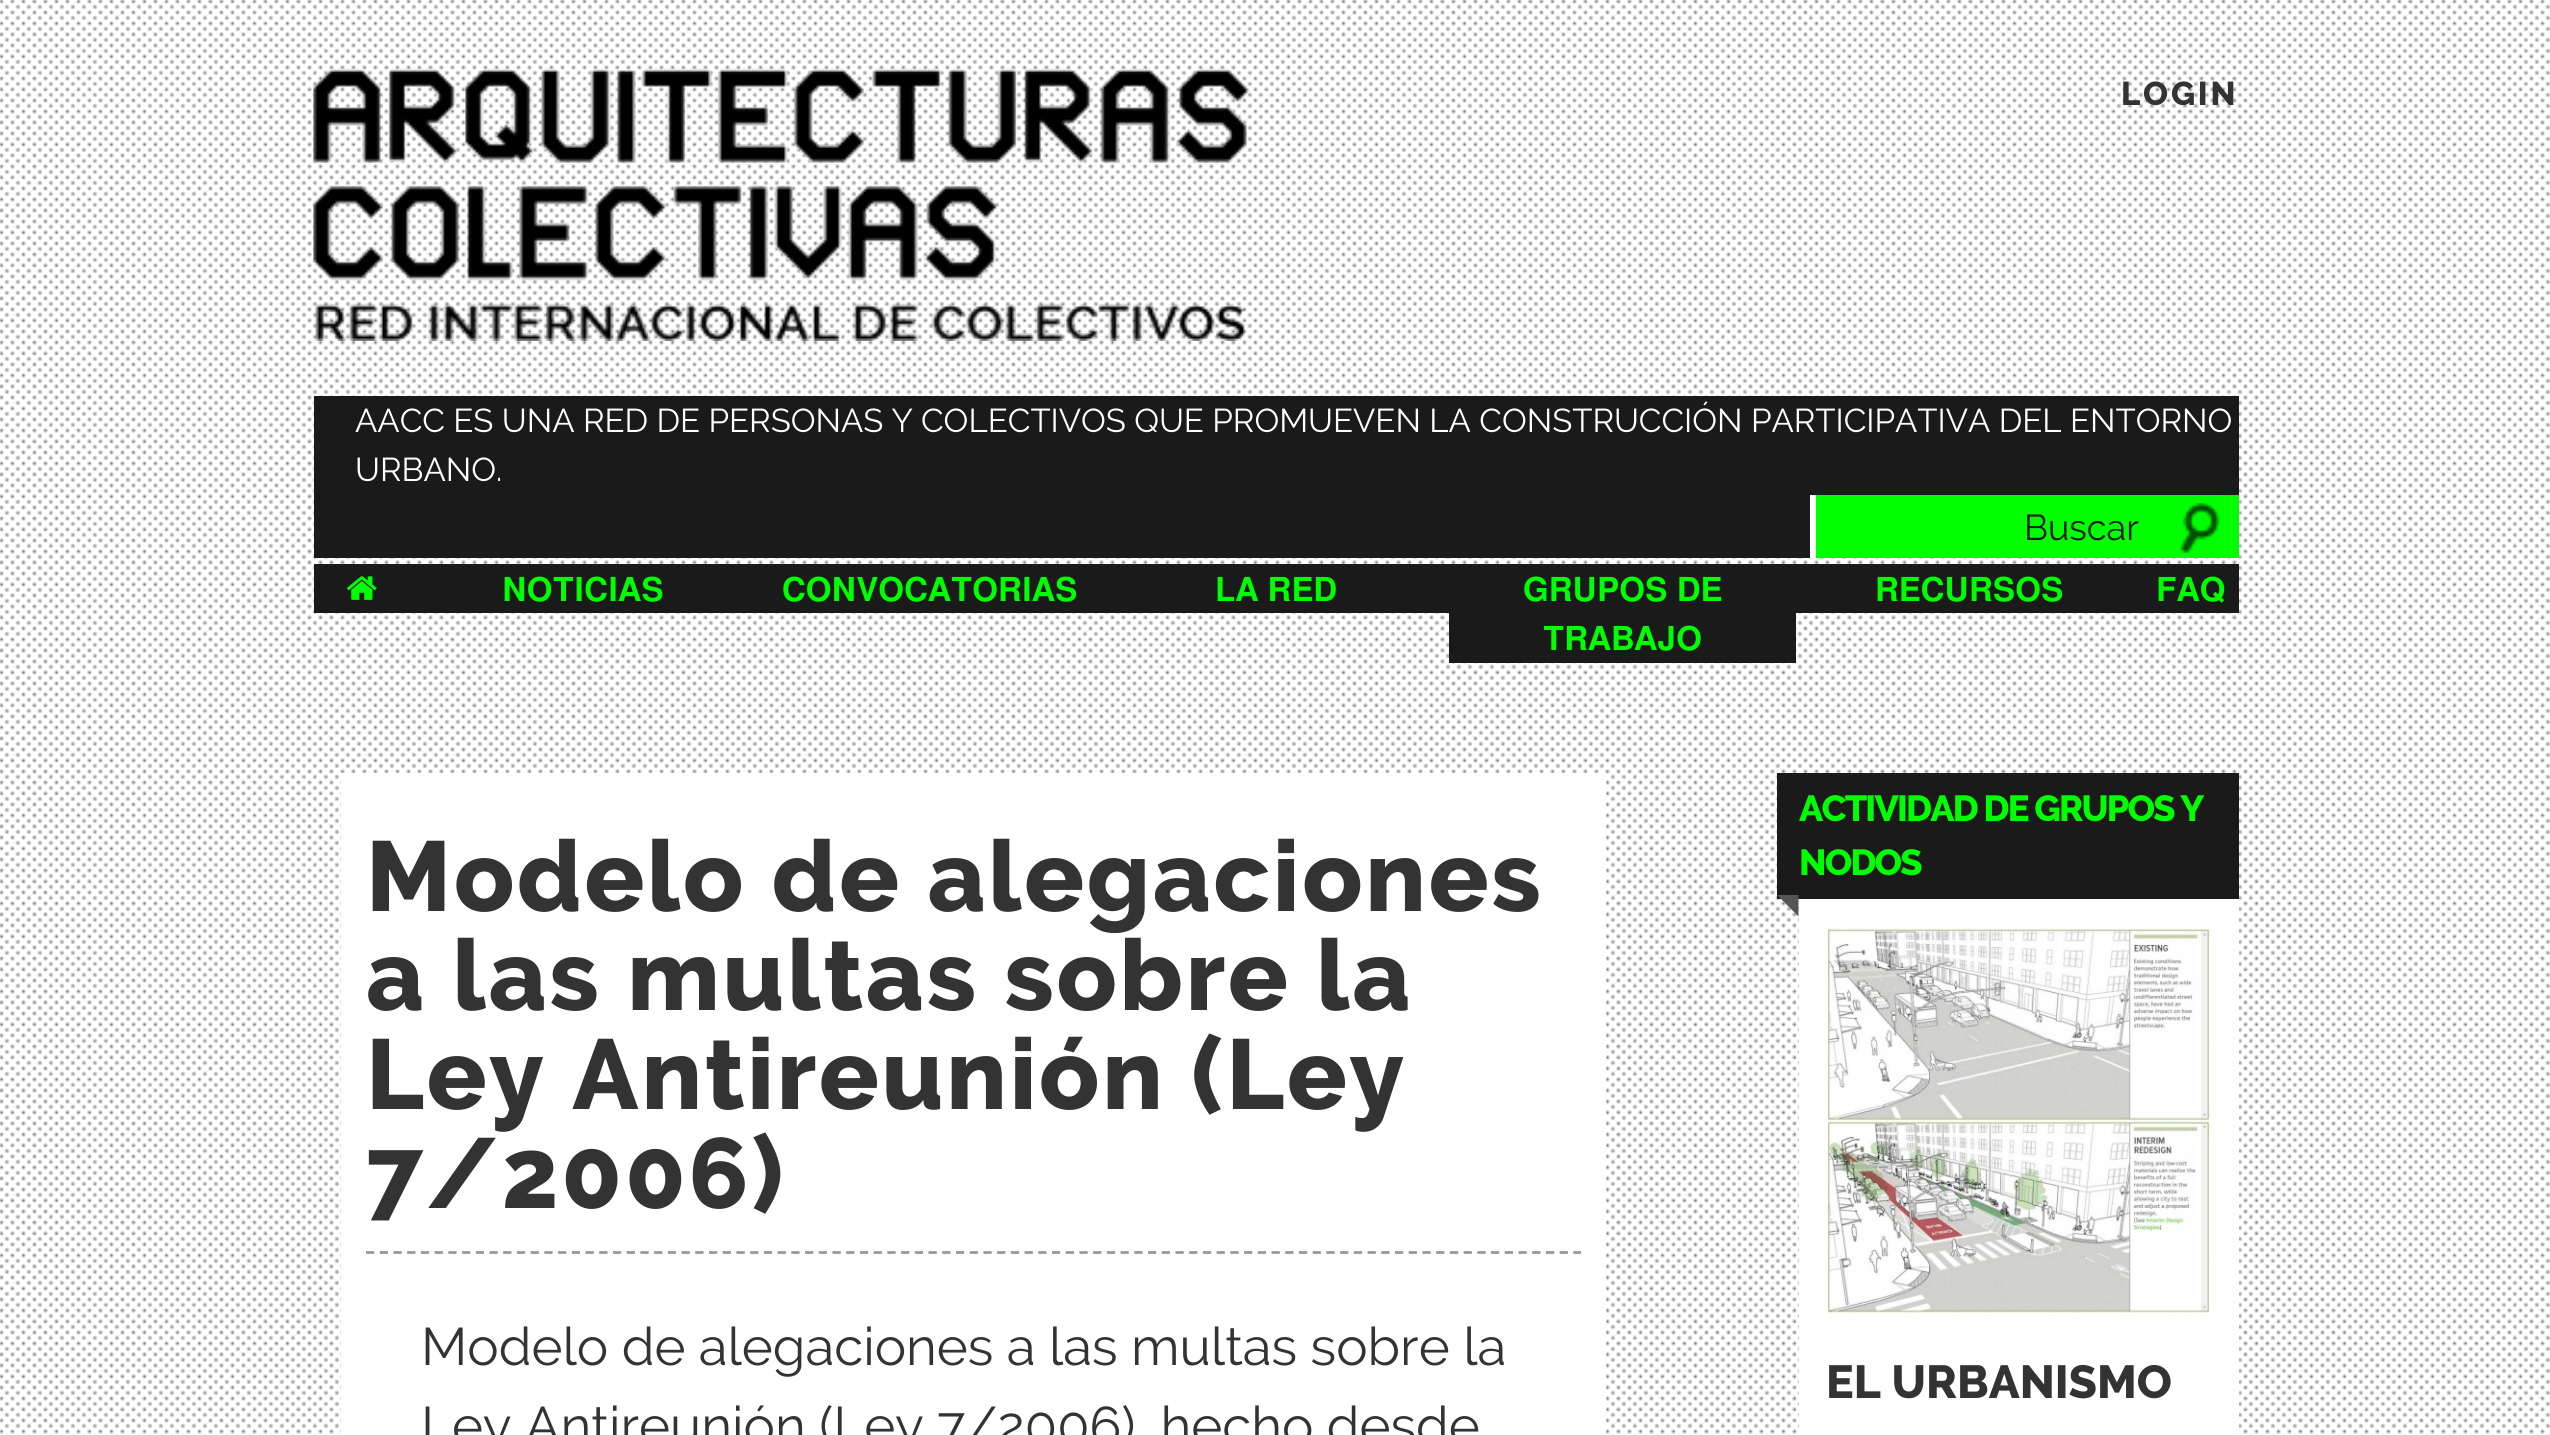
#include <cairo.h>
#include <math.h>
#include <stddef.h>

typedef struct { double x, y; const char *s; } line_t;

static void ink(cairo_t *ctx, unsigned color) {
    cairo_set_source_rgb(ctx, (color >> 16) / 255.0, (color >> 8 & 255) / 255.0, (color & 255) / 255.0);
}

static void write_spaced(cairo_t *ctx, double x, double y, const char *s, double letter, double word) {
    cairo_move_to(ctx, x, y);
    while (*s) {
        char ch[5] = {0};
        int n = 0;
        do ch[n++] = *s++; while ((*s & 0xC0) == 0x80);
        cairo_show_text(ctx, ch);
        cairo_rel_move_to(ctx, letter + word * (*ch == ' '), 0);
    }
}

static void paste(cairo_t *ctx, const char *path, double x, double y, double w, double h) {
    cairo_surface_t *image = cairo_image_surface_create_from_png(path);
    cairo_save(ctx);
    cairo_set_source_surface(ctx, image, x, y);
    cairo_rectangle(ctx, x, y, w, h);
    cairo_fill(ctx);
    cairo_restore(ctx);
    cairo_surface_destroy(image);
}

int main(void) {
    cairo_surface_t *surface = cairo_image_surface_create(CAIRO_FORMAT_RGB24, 2550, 1435);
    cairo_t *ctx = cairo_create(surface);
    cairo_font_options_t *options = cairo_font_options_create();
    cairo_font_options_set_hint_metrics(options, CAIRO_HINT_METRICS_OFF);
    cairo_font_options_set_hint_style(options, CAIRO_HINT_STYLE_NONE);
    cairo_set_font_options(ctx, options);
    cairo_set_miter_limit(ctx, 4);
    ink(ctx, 0xFFFFFF);
    cairo_paint(ctx);
    paste(ctx, "media/1.png", 0, 0, 2550, 1435);
    paste(ctx, "media/2.png", 313, 68, 936, 273);
    cairo_select_font_face(ctx, "Raleway ExtraBold", CAIRO_FONT_SLANT_NORMAL, CAIRO_FONT_WEIGHT_NORMAL);
    cairo_set_font_size(ctx, 33);
    ink(ctx, 0x333333);
    write_spaced(ctx, 2121, 105, "LOGIN", 2.75, 0);
    ink(ctx, 0x1A1A1A);
    cairo_rectangle(ctx, 314, 396, 1925, 162);
    cairo_fill(ctx);
    cairo_select_font_face(ctx, "Raleway", CAIRO_FONT_SLANT_NORMAL, CAIRO_FONT_WEIGHT_NORMAL);
    ink(ctx, 0xFFFFFF);
    cairo_move_to(ctx, 355, 432);
    cairo_show_text(ctx, "AACC ES UNA RED DE PERSONAS Y COLECTIVOS QUE PROMUEVEN LA CONSTRUCCIÓN PARTICIPATIVA DEL ENTORNO");
    cairo_move_to(ctx, 355, 481);
    cairo_show_text(ctx, "URBANO.");
    ink(ctx, 0x00FF00);
    cairo_rectangle(ctx, 1816, 495, 423, 63);
    cairo_fill(ctx);
    ink(ctx, 0xFFFFFF);
    cairo_rectangle(ctx, 1810, 495, 6, 63);
    cairo_fill(ctx);
    cairo_set_font_size(ctx, 36);
    ink(ctx, 0x1A1A1A);
    cairo_move_to(ctx, 2024, 540);
    cairo_show_text(ctx, "Buscar");
    paste(ctx, "media/3.png", 2180, 503, 40, 50);
    cairo_rectangle(ctx, 314, 564, 1135, 49);
    cairo_fill(ctx);
    paste(ctx, "media/4.png", 347, 576, 30, 24);
    cairo_select_font_face(ctx, "FreeSans SemiBold", CAIRO_FONT_SLANT_NORMAL, CAIRO_FONT_WEIGHT_NORMAL);
    cairo_set_font_size(ctx, 33);
    ink(ctx, 0x00FF00);
    {
        static const line_t items[] = {
            {502, 601, "NOTICIAS"},
            {782, 601, "CONVOCATORIAS"},
            {1215, 601, "LA RED"},
        };
        for (size_t i = 0; i < sizeof items / sizeof *items; i++) {
            cairo_move_to(ctx, items[i].x, items[i].y);
            cairo_show_text(ctx, items[i].s);
        }
    }
    ink(ctx, 0x1A1A1A);
    cairo_rectangle(ctx, 1449, 564, 347, 99);
    cairo_fill(ctx);
    ink(ctx, 0x00FF00);
    cairo_move_to(ctx, 1523, 601);
    cairo_show_text(ctx, "GRUPOS DE");
    cairo_move_to(ctx, 1543, 650);
    cairo_show_text(ctx, "TRABAJO");
    ink(ctx, 0x1A1A1A);
    cairo_rectangle(ctx, 1796, 564, 443, 49);
    cairo_fill(ctx);
    ink(ctx, 0x00FF00);
    cairo_move_to(ctx, 1875, 601);
    cairo_show_text(ctx, "RECURSOS");
    cairo_move_to(ctx, 2156, 601);
    cairo_show_text(ctx, "FAQ");
    ink(ctx, 0xFFFFFF);
    cairo_rectangle(ctx, 341, 773, 1265, 662);
    cairo_fill(ctx);
    cairo_select_font_face(ctx, "Raleway ExtraBold", CAIRO_FONT_SLANT_NORMAL, CAIRO_FONT_WEIGHT_NORMAL);
    cairo_set_font_size(ctx, 99);
    ink(ctx, 0x333333);
    {
        static const line_t items[] = {
            {366, 911, "Modelo de alegaciones"},
            {366, 1010, "a las multas sobre la"},
            {366, 1109, "Ley Antireunión (Ley"},
            {366, 1208, "7/2006)"},
        };
        for (size_t i = 0; i < sizeof items / sizeof *items; i++) {
            write_spaced(ctx, items[i].x, items[i].y, items[i].s, 2.75, 0);
        }
    }
    cairo_new_path(ctx);
    cairo_move_to(ctx, 366, 1252.5);
    cairo_line_to(ctx, 1581, 1252.5);
    ink(ctx, 0x999999);
    cairo_set_line_width(ctx, 2.8);
    cairo_set_dash(ctx, (double[]){8.25, 5.47}, 2, 0);
    cairo_stroke(ctx);
    cairo_select_font_face(ctx, "Raleway", CAIRO_FONT_SLANT_NORMAL, CAIRO_FONT_WEIGHT_NORMAL);
    cairo_set_font_size(ctx, 52.8);
    ink(ctx, 0x333333);
    cairo_move_to(ctx, 421, 1365);
    cairo_show_text(ctx, "Modelo de alegaciones a las multas sobre la");
    cairo_move_to(ctx, 421, 1444);
    cairo_show_text(ctx, "Ley Antireunión (Ley 7/2006), hecho desde");
    ink(ctx, 0x1A1A1A);
    cairo_rectangle(ctx, 1777, 773, 462, 126);
    cairo_fill(ctx);
    cairo_select_font_face(ctx, "Raleway ExtraBold", CAIRO_FONT_SLANT_NORMAL, CAIRO_FONT_WEIGHT_NORMAL);
    cairo_set_font_size(ctx, 36.25);
    ink(ctx, 0x00FF00);
    write_spaced(ctx, 1799, 821, "ACTIVIDAD DE GRUPOS Y", -1.8, 0);
    write_spaced(ctx, 1799, 875, "NODOS", -1.8, 0);
    cairo_select_font_face(ctx, "DejaVu Sans", CAIRO_FONT_SLANT_NORMAL, CAIRO_FONT_WEIGHT_NORMAL);
    cairo_set_font_size(ctx, 28);
    ink(ctx, 0x555555);
    write_spaced(ctx, 1777, 913, "◥", -1.8, 0);
    ink(ctx, 0xFFFFFF);
    cairo_rectangle(ctx, 1799, 899, 440, 536);
    cairo_fill(ctx);
    paste(ctx, "media/5.png", 1826, 927, 385, 390);
    cairo_select_font_face(ctx, "Raleway ExtraBold", CAIRO_FONT_SLANT_NORMAL, CAIRO_FONT_WEIGHT_NORMAL);
    cairo_set_font_size(ctx, 46.25);
    ink(ctx, 0x333333);
    cairo_move_to(ctx, 1826, 1398);
    cairo_show_text(ctx, "EL URBANISMO");
    cairo_surface_write_to_png(surface, "image.png");
    cairo_font_options_destroy(options);
    cairo_destroy(ctx);
    cairo_surface_destroy(surface);
    return 0;
}
